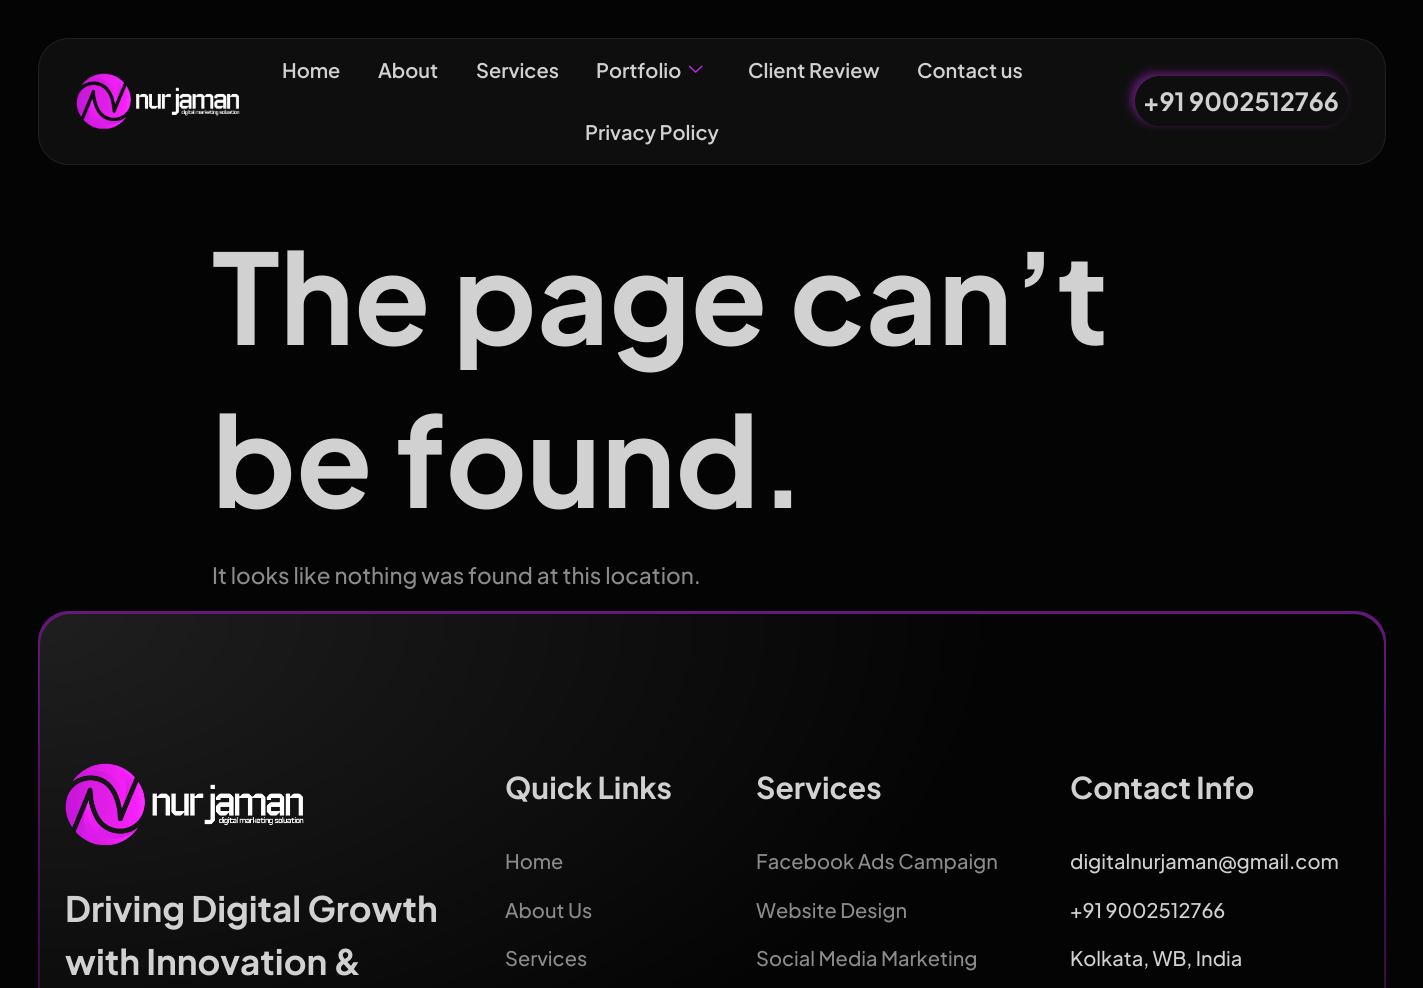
#include <cairo.h>
#include <math.h>
#include <stddef.h>

typedef struct { double x, y; const char *s; } line_t;

static void ink(cairo_t *ctx, unsigned color) {
    cairo_set_source_rgb(ctx, (color >> 16) / 255.0, (color >> 8 & 255) / 255.0, (color & 255) / 255.0);
}

static void round_path(cairo_t *ctx, double x, double y, double w, double h, double r) {
    cairo_new_sub_path(ctx);
    cairo_arc(ctx, x + w - r, y + h - r, r, 0, M_PI / 2);
    cairo_arc(ctx, x + r, y + h - r, r, M_PI / 2, M_PI);
    cairo_arc(ctx, x + r, y + r, r, M_PI, 1.5 * M_PI);
    cairo_arc(ctx, x + w - r, y + r, r, 1.5 * M_PI, 2 * M_PI);
    cairo_close_path(ctx);
}

static void blur_box(cairo_t *ctx, double x, double y, double w, double h, double r, double blur, double alpha) {
    cairo_push_group_with_content(ctx, CAIRO_CONTENT_ALPHA);
    cairo_set_operator(ctx, CAIRO_OPERATOR_SOURCE);
    for (int i = 15; i >= -15 && fmin(w, h) + blur * i / 3 > 0; i -= 2) {
        double e = blur * i / 6;
        cairo_set_source_rgba(ctx, 0, 0, 0, alpha * erfc((i - 1) / 8.5) / 2);
        round_path(ctx, x - e, y - e, w + 2 * e, h + 2 * e, fmax(0, fmin(r + e + blur * .6, fmin(w, h) / 2 + e)));
        cairo_fill(ctx);
    }
    cairo_pattern_t *soft = cairo_pop_group(ctx);
    cairo_mask(ctx, soft);
    cairo_pattern_destroy(soft);
}

static void paste(cairo_t *ctx, const char *path, double x, double y, double w, double h) {
    cairo_surface_t *image = cairo_image_surface_create_from_png(path);
    cairo_save(ctx);
    cairo_set_source_surface(ctx, image, x, y);
    cairo_rectangle(ctx, x, y, w, h);
    cairo_fill(ctx);
    cairo_restore(ctx);
    cairo_surface_destroy(image);
}

int main(void) {
    cairo_surface_t *surface = cairo_image_surface_create(CAIRO_FORMAT_RGB24, 1423, 988);
    cairo_t *ctx = cairo_create(surface);
    cairo_font_options_t *options = cairo_font_options_create();
    cairo_font_options_set_hint_metrics(options, CAIRO_HINT_METRICS_OFF);
    cairo_font_options_set_hint_style(options, CAIRO_HINT_STYLE_NONE);
    cairo_set_font_options(ctx, options);
    cairo_set_miter_limit(ctx, 4);
    cairo_pattern_t *gradient;
    ink(ctx, 0x040404);
    cairo_paint(ctx);
    ink(ctx, 0x0E0E0E);
    round_path(ctx, 38.5, 38.5, 1347, 126, 30.5);
    cairo_fill_preserve(ctx);
    ink(ctx, 0x1F1F1F);
    cairo_set_line_width(ctx, 1);
    cairo_stroke(ctx);
    paste(ctx, "media/1.png", 76, 73, 164, 56);
    cairo_select_font_face(ctx, "Plus Jakarta Sans SemiBold", CAIRO_FONT_SLANT_NORMAL, CAIRO_FONT_WEIGHT_NORMAL);
    cairo_set_font_size(ctx, 20);
    ink(ctx, 0xD1D1D1);
    {
        static const line_t items[] = {
            {282, 78, "Home"},
            {378, 78, "About"},
            {476, 78, "Services"},
            {596, 78, "Portfolio"},
        };
        for (size_t i = 0; i < sizeof items / sizeof *items; i++) {
            cairo_move_to(ctx, items[i].x, items[i].y);
            cairo_show_text(ctx, items[i].s);
        }
    }
    paste(ctx, "media/2.png", 688, 65, 15, 8);
    {
        static const line_t items[] = {
            {748, 78, "Client Review"},
            {917, 78, "Contact us"},
            {585, 140, "Privacy Policy"},
        };
        for (size_t i = 0; i < sizeof items / sizeof *items; i++) {
            cairo_move_to(ctx, items[i].x, items[i].y);
            cairo_show_text(ctx, items[i].s);
        }
    }
    ink(ctx, 0xC82AEF);
    blur_box(ctx, 1131, 73, 213, 50, 25, 4.5, 0.44);
    ink(ctx, 0x0E0E0E);
    round_path(ctx, 1135, 76, 213, 50, 25);
    cairo_fill(ctx);
    cairo_select_font_face(ctx, "Plus Jakarta Sans", CAIRO_FONT_SLANT_NORMAL, CAIRO_FONT_WEIGHT_BOLD);
    cairo_set_font_size(ctx, 25);
    ink(ctx, 0xD1D1D1);
    cairo_move_to(ctx, 1143, 111);
    cairo_show_text(ctx, "+91 9002512766");
    cairo_set_font_size(ctx, 125);
    cairo_move_to(ctx, 212, 345);
    cairo_show_text(ctx, "The page can’t");
    cairo_move_to(ctx, 212, 508);
    cairo_show_text(ctx, "be found.");
    cairo_select_font_face(ctx, "Plus Jakarta Sans Medium", CAIRO_FONT_SLANT_NORMAL, CAIRO_FONT_WEIGHT_NORMAL);
    cairo_set_font_size(ctx, 22.5);
    ink(ctx, 0x8B8B8B);
    cairo_move_to(ctx, 212, 584);
    cairo_show_text(ctx, "It looks like nothing was found at this location.");
    gradient = cairo_pattern_create_linear(712, 611, 712, 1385);
    cairo_pattern_add_color_stop_rgba(gradient, 0, 0.4, 0.09, 0.478, 1);
    cairo_pattern_add_color_stop_rgba(gradient, 1, 0.016, 0.016, 0.016, 1);
    cairo_set_source(ctx, gradient);
    cairo_pattern_destroy(gradient);
    round_path(ctx, 38, 611, 1348, 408, 31);
    cairo_fill(ctx);
    gradient = cairo_pattern_create_radial(0, 0, 0, 0, 0, 1);
    cairo_pattern_set_matrix(gradient, &(cairo_matrix_t){1.0 / 1900, 0, 0, 1.0 / 1091, -1.0 * 40 / 1900, -1.0 * 614 / 1091});
    cairo_pattern_add_color_stop_rgba(gradient, 0, 0.122, 0.122, 0.122, 1);
    cairo_pattern_add_color_stop_rgba(gradient, 0.5, 0.016, 0.016, 0.016, 1);
    cairo_set_source(ctx, gradient);
    cairo_pattern_destroy(gradient);
    round_path(ctx, 40, 614, 1344, 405, 31);
    cairo_fill(ctx);
    paste(ctx, "media/3.png", 65, 763, 239, 82);
    cairo_select_font_face(ctx, "Plus Jakarta Sans", CAIRO_FONT_SLANT_NORMAL, CAIRO_FONT_WEIGHT_BOLD);
    cairo_set_font_size(ctx, 35);
    ink(ctx, 0xD1D1D1);
    cairo_move_to(ctx, 65, 922);
    cairo_show_text(ctx, "Driving Digital Growth");
    cairo_move_to(ctx, 65, 975);
    cairo_show_text(ctx, "with Innovation &");
    cairo_set_font_size(ctx, 30);
    cairo_move_to(ctx, 505, 799);
    cairo_show_text(ctx, "Quick Links");
    cairo_select_font_face(ctx, "Plus Jakarta Sans Medium", CAIRO_FONT_SLANT_NORMAL, CAIRO_FONT_WEIGHT_NORMAL);
    cairo_set_font_size(ctx, 20);
    ink(ctx, 0x8B8B8B);
    {
        static const line_t items[] = {
            {505, 869, "Home"},
            {505, 918, "About Us"},
            {505, 966, "Services"},
        };
        for (size_t i = 0; i < sizeof items / sizeof *items; i++) {
            cairo_move_to(ctx, items[i].x, items[i].y);
            cairo_show_text(ctx, items[i].s);
        }
    }
    cairo_select_font_face(ctx, "Plus Jakarta Sans", CAIRO_FONT_SLANT_NORMAL, CAIRO_FONT_WEIGHT_BOLD);
    cairo_set_font_size(ctx, 30);
    ink(ctx, 0xD1D1D1);
    cairo_move_to(ctx, 756, 799);
    cairo_show_text(ctx, "Services");
    cairo_select_font_face(ctx, "Plus Jakarta Sans Medium", CAIRO_FONT_SLANT_NORMAL, CAIRO_FONT_WEIGHT_NORMAL);
    cairo_set_font_size(ctx, 20);
    ink(ctx, 0x8B8B8B);
    {
        static const line_t items[] = {
            {756, 869, "Facebook Ads Campaign"},
            {756, 918, "Website Design"},
            {756, 966, "Social Media Marketing"},
        };
        for (size_t i = 0; i < sizeof items / sizeof *items; i++) {
            cairo_move_to(ctx, items[i].x, items[i].y);
            cairo_show_text(ctx, items[i].s);
        }
    }
    cairo_select_font_face(ctx, "Plus Jakarta Sans", CAIRO_FONT_SLANT_NORMAL, CAIRO_FONT_WEIGHT_BOLD);
    cairo_set_font_size(ctx, 30);
    ink(ctx, 0xD1D1D1);
    cairo_move_to(ctx, 1070, 799);
    cairo_show_text(ctx, "Contact Info");
    cairo_select_font_face(ctx, "Plus Jakarta Sans Medium", CAIRO_FONT_SLANT_NORMAL, CAIRO_FONT_WEIGHT_NORMAL);
    cairo_set_font_size(ctx, 20);
    {
        static const line_t items[] = {
            {1070, 869, "digitalnurjaman@gmail.com"},
            {1070, 918, "+91 9002512766"},
            {1070, 966, "Kolkata, WB, India"},
        };
        for (size_t i = 0; i < sizeof items / sizeof *items; i++) {
            cairo_move_to(ctx, items[i].x, items[i].y);
            cairo_show_text(ctx, items[i].s);
        }
    }
    cairo_surface_write_to_png(surface, "image.png");
    cairo_font_options_destroy(options);
    cairo_destroy(ctx);
    cairo_surface_destroy(surface);
    return 0;
}
